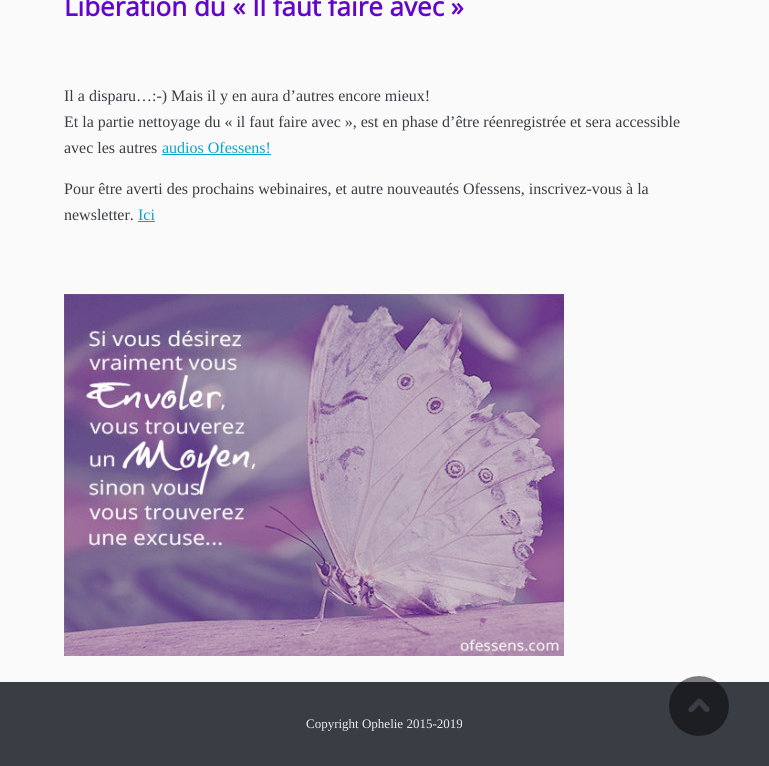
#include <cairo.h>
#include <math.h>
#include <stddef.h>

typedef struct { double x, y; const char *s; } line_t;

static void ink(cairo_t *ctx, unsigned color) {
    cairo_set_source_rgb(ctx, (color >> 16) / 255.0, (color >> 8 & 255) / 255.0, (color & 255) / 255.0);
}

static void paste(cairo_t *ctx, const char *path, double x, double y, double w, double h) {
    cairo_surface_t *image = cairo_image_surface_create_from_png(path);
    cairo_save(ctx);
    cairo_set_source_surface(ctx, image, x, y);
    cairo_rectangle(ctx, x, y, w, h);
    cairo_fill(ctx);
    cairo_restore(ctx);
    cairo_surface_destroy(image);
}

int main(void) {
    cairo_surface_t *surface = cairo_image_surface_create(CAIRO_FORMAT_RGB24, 769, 766);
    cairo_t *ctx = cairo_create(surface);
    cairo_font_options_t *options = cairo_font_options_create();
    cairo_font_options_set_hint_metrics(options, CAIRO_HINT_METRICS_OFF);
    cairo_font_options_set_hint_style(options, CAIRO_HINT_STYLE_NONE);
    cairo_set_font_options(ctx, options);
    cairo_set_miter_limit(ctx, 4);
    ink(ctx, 0xFAFAFA);
    cairo_paint(ctx);
    cairo_select_font_face(ctx, "Open Sans", CAIRO_FONT_SLANT_NORMAL, CAIRO_FONT_WEIGHT_BOLD);
    cairo_set_font_size(ctx, 26);
    ink(ctx, 0x6306C9);
    cairo_move_to(ctx, 64, 16);
    cairo_show_text(ctx, "Libération du « Il faut faire avec »");
    cairo_select_font_face(ctx, "Liberation Serif", CAIRO_FONT_SLANT_NORMAL, CAIRO_FONT_WEIGHT_NORMAL);
    cairo_set_font_size(ctx, 16);
    ink(ctx, 0x393D44);
    {
        static const line_t items[] = {
            {64, 101, "Il a disparu…:-) Mais il y en aura d’autres encore mieux!"},
            {64, 127, "Et la partie nettoyage du « il faut faire avec », est en phase d’être réenregistrée et sera accessible"},
            {64, 153, "avec les autres"},
        };
        for (size_t i = 0; i < sizeof items / sizeof *items; i++) {
            cairo_move_to(ctx, items[i].x, items[i].y);
            cairo_show_text(ctx, items[i].s);
        }
    }
    ink(ctx, 0x06A4C9);
    cairo_move_to(ctx, 162, 153);
    cairo_show_text(ctx, "audios Ofessens!");
    cairo_rectangle(ctx, 162, 154, 109, 1);
    cairo_fill(ctx);
    ink(ctx, 0x393D44);
    cairo_move_to(ctx, 64, 194);
    cairo_show_text(ctx, "Pour être averti des prochains webinaires, et autre nouveautés Ofessens, inscrivez-vous à la");
    cairo_move_to(ctx, 64, 220);
    cairo_show_text(ctx, "newsletter.");
    ink(ctx, 0x06A4C9);
    cairo_move_to(ctx, 138, 220);
    cairo_show_text(ctx, "Ici");
    cairo_rectangle(ctx, 138, 221, 17, 1);
    cairo_fill(ctx);
    paste(ctx, "media/1.png", 64, 294, 500, 362);
    ink(ctx, 0x393D44);
    cairo_rectangle(ctx, 0, 682, 769, 84);
    cairo_fill(ctx);
    cairo_set_font_size(ctx, 13);
    ink(ctx, 0xEDEDED);
    cairo_move_to(ctx, 306, 728);
    cairo_show_text(ctx, "Copyright Ophelie 2015-2019");
    paste(ctx, "media/2.png", 669, 676, 60, 60);
    cairo_surface_write_to_png(surface, "image.png");
    cairo_font_options_destroy(options);
    cairo_destroy(ctx);
    cairo_surface_destroy(surface);
    return 0;
}
